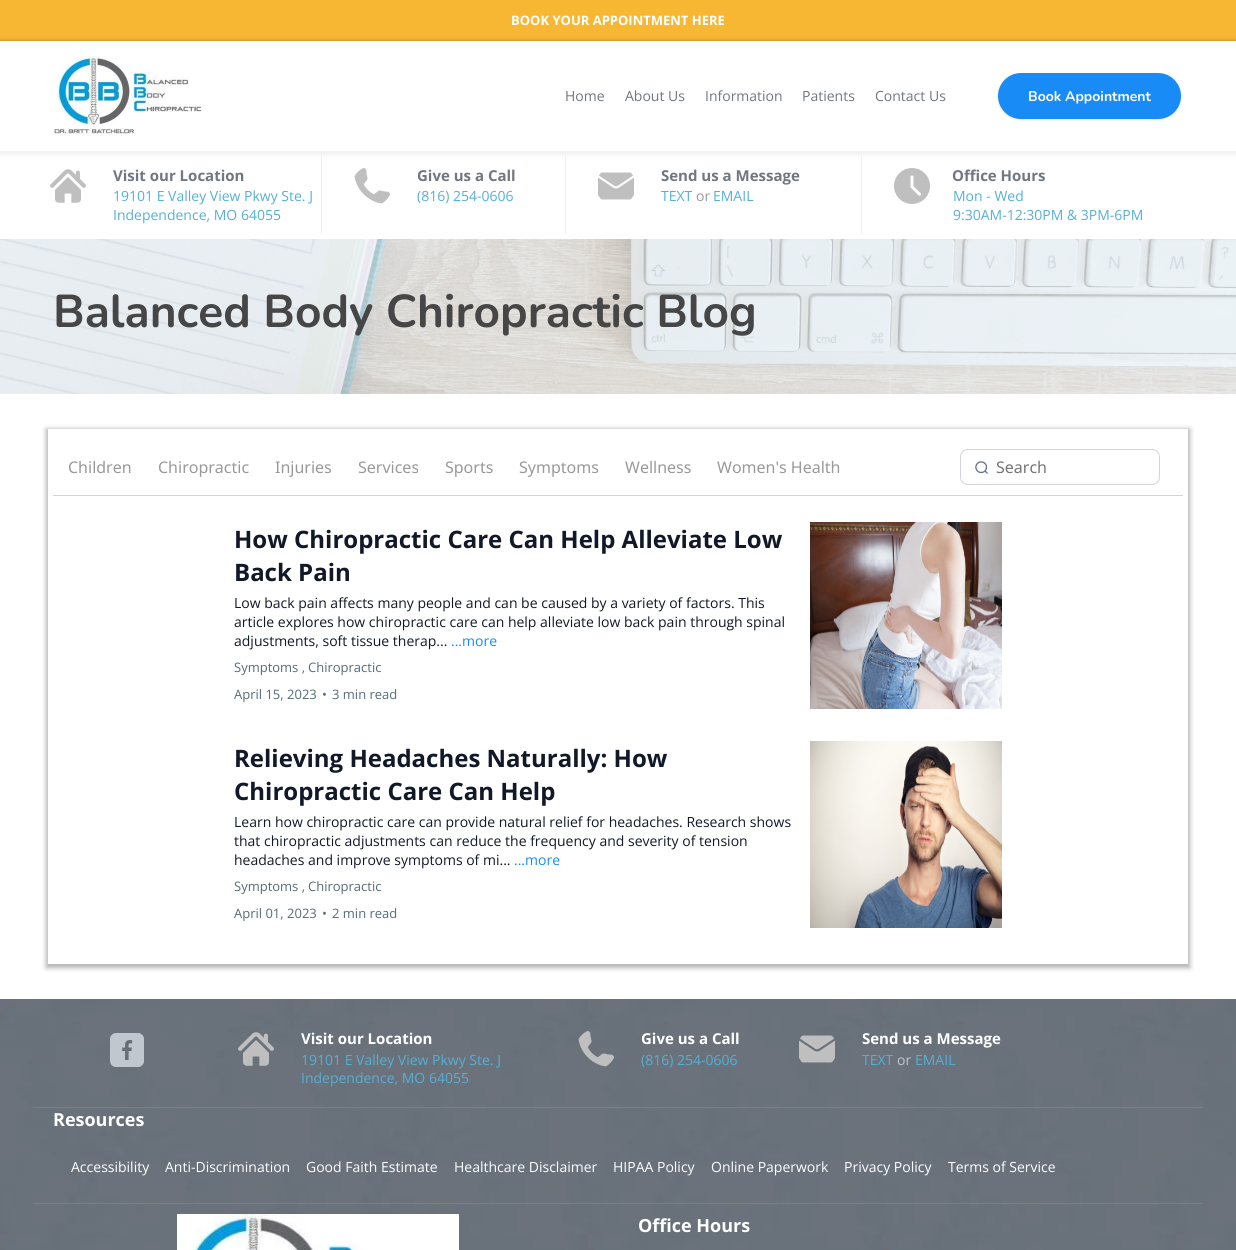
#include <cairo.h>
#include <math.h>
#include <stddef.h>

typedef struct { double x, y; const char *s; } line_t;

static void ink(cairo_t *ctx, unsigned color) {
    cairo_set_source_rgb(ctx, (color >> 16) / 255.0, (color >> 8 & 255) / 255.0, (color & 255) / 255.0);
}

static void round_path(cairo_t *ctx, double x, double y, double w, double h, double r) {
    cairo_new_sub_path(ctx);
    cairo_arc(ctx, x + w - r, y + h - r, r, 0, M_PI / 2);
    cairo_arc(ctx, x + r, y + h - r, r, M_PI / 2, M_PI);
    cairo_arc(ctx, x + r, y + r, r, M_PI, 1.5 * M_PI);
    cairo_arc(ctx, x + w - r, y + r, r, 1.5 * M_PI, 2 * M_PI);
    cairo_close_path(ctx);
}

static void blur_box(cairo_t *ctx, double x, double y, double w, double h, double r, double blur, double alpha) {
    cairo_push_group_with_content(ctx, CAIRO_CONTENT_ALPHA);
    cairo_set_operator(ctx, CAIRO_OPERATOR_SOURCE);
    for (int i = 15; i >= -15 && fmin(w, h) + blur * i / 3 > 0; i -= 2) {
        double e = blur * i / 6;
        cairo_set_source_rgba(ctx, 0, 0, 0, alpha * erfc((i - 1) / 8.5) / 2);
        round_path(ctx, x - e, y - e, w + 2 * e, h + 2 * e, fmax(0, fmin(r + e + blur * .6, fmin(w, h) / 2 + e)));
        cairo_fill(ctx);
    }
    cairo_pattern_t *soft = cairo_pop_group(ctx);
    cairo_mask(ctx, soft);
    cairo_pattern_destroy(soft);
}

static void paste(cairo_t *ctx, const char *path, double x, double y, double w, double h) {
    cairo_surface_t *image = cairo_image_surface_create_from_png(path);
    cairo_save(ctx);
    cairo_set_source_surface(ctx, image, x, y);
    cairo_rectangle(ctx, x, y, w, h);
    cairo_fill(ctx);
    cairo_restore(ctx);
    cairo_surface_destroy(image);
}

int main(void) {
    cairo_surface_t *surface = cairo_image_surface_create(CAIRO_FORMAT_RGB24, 1236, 1250);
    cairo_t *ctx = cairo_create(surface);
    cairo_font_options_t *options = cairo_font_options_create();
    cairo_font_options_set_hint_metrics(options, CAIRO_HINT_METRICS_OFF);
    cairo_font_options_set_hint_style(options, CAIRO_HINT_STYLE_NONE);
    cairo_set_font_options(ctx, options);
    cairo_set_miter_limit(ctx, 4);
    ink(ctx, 0xFFFFFF);
    cairo_paint(ctx);
    ink(ctx, 0xF7B733);
    cairo_rectangle(ctx, 0, 0, 1236, 41);
    cairo_fill(ctx);
    cairo_select_font_face(ctx, "Open Sans", CAIRO_FONT_SLANT_NORMAL, CAIRO_FONT_WEIGHT_BOLD);
    cairo_set_font_size(ctx, 13);
    ink(ctx, 0xFFFFFF);
    cairo_move_to(ctx, 511, 25);
    cairo_show_text(ctx, "BOOK YOUR APPOINTMENT HERE");
    cairo_save(ctx);
    cairo_set_fill_rule(ctx, CAIRO_FILL_RULE_EVEN_ODD);
    cairo_new_path(ctx);
    cairo_move_to(ctx, 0, 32);
    cairo_line_to(ctx, 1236, 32);
    cairo_line_to(ctx, 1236, 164);
    cairo_line_to(ctx, 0, 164);
    cairo_close_path(ctx);
    cairo_move_to(ctx, 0, 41);
    cairo_line_to(ctx, 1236, 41);
    cairo_line_to(ctx, 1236, 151);
    cairo_line_to(ctx, 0, 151);
    cairo_close_path(ctx);
    cairo_clip(ctx);
    ink(ctx, 0x000000);
    blur_box(ctx, -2, 41, 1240, 114, 0, 2.5, 0.3);
    cairo_restore(ctx);
    paste(ctx, "media/1.png", 53, 56, 150, 80);
    cairo_select_font_face(ctx, "Open Sans", CAIRO_FONT_SLANT_NORMAL, CAIRO_FONT_WEIGHT_NORMAL);
    cairo_set_font_size(ctx, 14);
    ink(ctx, 0x707780);
    {
        static const line_t items[] = {
            {565, 101, "Home"},
            {625, 101, "About Us"},
            {705, 101, "Information"},
            {802, 101, "Patients"},
            {875, 101, "Contact Us"},
        };
        for (size_t i = 0; i < sizeof items / sizeof *items; i++) {
            cairo_move_to(ctx, items[i].x, items[i].y);
            cairo_show_text(ctx, items[i].s);
        }
    }
    ink(ctx, 0x000000);
    blur_box(ctx, 998, 74, 183, 46, 23, 1, 0.1);
    ink(ctx, 0x188BF6);
    round_path(ctx, 998, 73, 183, 46, 23);
    cairo_fill(ctx);
    cairo_select_font_face(ctx, "Nunito", CAIRO_FONT_SLANT_NORMAL, CAIRO_FONT_WEIGHT_BOLD);
    ink(ctx, 0xFFFFFF);
    cairo_move_to(ctx, 1028, 101);
    cairo_show_text(ctx, "Book Appointment");
    cairo_set_source_rgba(ctx, 1, 1, 1, 0.8);
    cairo_rectangle(ctx, 0, 151, 1236, 8);
    cairo_fill(ctx);
    paste(ctx, "media/2.png", 50, 169, 36, 34);
    ink(ctx, 0xEFEFEF);
    cairo_rectangle(ctx, 321, 156, 1, 78);
    cairo_fill(ctx);
    cairo_select_font_face(ctx, "Open Sans", CAIRO_FONT_SLANT_NORMAL, CAIRO_FONT_WEIGHT_BOLD);
    cairo_set_font_size(ctx, 15);
    ink(ctx, 0x707780);
    cairo_move_to(ctx, 113, 181);
    cairo_show_text(ctx, "Visit our Location");
    cairo_select_font_face(ctx, "Open Sans", CAIRO_FONT_SLANT_NORMAL, CAIRO_FONT_WEIGHT_NORMAL);
    cairo_set_font_size(ctx, 14);
    ink(ctx, 0x56AFD5);
    cairo_move_to(ctx, 113, 201);
    cairo_show_text(ctx, "19101 E Valley View Pkwy Ste. J");
    cairo_move_to(ctx, 113, 220);
    cairo_show_text(ctx, "Independence, MO 64055");
    paste(ctx, "media/3.png", 354, 168, 36, 36);
    ink(ctx, 0xEFEFEF);
    cairo_rectangle(ctx, 565, 156, 1, 78);
    cairo_fill(ctx);
    cairo_select_font_face(ctx, "Open Sans", CAIRO_FONT_SLANT_NORMAL, CAIRO_FONT_WEIGHT_BOLD);
    cairo_set_font_size(ctx, 15);
    ink(ctx, 0x707780);
    cairo_move_to(ctx, 417, 181);
    cairo_show_text(ctx, "Give us a Call");
    cairo_select_font_face(ctx, "Open Sans", CAIRO_FONT_SLANT_NORMAL, CAIRO_FONT_WEIGHT_NORMAL);
    cairo_set_font_size(ctx, 14);
    ink(ctx, 0x56AFD5);
    cairo_move_to(ctx, 417, 201);
    cairo_show_text(ctx, "(816) 254-0606");
    paste(ctx, "media/4.png", 598, 172, 36, 28);
    ink(ctx, 0xEFEFEF);
    cairo_rectangle(ctx, 861, 156, 1, 78);
    cairo_fill(ctx);
    cairo_select_font_face(ctx, "Open Sans", CAIRO_FONT_SLANT_NORMAL, CAIRO_FONT_WEIGHT_BOLD);
    cairo_set_font_size(ctx, 15);
    ink(ctx, 0x707780);
    cairo_move_to(ctx, 661, 181);
    cairo_show_text(ctx, "Send us a Message");
    cairo_select_font_face(ctx, "Open Sans", CAIRO_FONT_SLANT_NORMAL, CAIRO_FONT_WEIGHT_NORMAL);
    cairo_set_font_size(ctx, 14);
    ink(ctx, 0x56AFD5);
    cairo_move_to(ctx, 661, 201);
    cairo_show_text(ctx, "TEXT");
    ink(ctx, 0x999999);
    cairo_move_to(ctx, 696, 201);
    cairo_show_text(ctx, "or");
    ink(ctx, 0x56AFD5);
    cairo_move_to(ctx, 713, 201);
    cairo_show_text(ctx, "EMAIL");
    paste(ctx, "media/5.png", 894, 168, 36, 36);
    cairo_select_font_face(ctx, "Open Sans", CAIRO_FONT_SLANT_NORMAL, CAIRO_FONT_WEIGHT_BOLD);
    cairo_set_font_size(ctx, 15);
    ink(ctx, 0x707780);
    cairo_move_to(ctx, 952, 181);
    cairo_show_text(ctx, "Office Hours");
    cairo_select_font_face(ctx, "Open Sans", CAIRO_FONT_SLANT_NORMAL, CAIRO_FONT_WEIGHT_NORMAL);
    cairo_set_font_size(ctx, 14);
    ink(ctx, 0x56AFD5);
    cairo_move_to(ctx, 953, 201);
    cairo_show_text(ctx, "Mon - Wed");
    cairo_move_to(ctx, 953, 220);
    cairo_show_text(ctx, "9:30AM-12:30PM & 3PM-6PM");
    ink(ctx, 0xF5F8FB);
    cairo_rectangle(ctx, 0, 239, 1236, 155);
    cairo_fill(ctx);
    paste(ctx, "media/6.png", 0, 239, 1236, 155);
    cairo_select_font_face(ctx, "Nunito", CAIRO_FONT_SLANT_NORMAL, CAIRO_FONT_WEIGHT_BOLD);
    cairo_set_font_size(ctx, 46);
    ink(ctx, 0x464646);
    cairo_move_to(ctx, 53, 327);
    cairo_show_text(ctx, "Balanced Body Chiropractic Blog");
    cairo_save(ctx);
    cairo_set_fill_rule(ctx, CAIRO_FILL_RULE_EVEN_ODD);
    cairo_new_path(ctx);
    cairo_move_to(ctx, 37, 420);
    cairo_line_to(ctx, 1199, 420);
    cairo_line_to(ctx, 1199, 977);
    cairo_line_to(ctx, 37, 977);
    cairo_close_path(ctx);
    cairo_move_to(ctx, 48, 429);
    cairo_line_to(ctx, 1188, 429);
    cairo_line_to(ctx, 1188, 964);
    cairo_line_to(ctx, 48, 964);
    cairo_close_path(ctx);
    cairo_clip(ctx);
    ink(ctx, 0x000000);
    blur_box(ctx, 46, 429, 1144, 539, 0, 2.5, 0.3);
    cairo_restore(ctx);
    ink(ctx, 0xD0D5DD);
    cairo_rectangle(ctx, 53, 495, 1130, 1);
    cairo_fill(ctx);
    cairo_select_font_face(ctx, "Noto Sans", CAIRO_FONT_SLANT_NORMAL, CAIRO_FONT_WEIGHT_NORMAL);
    cairo_set_font_size(ctx, 16);
    ink(ctx, 0x999999);
    {
        static const line_t items[] = {
            {68, 473, "Children"},
            {158, 473, "Chiropractic"},
            {275, 473, "Injuries"},
            {358, 473, "Services"},
            {445, 473, "Sports"},
            {519, 473, "Symptoms"},
            {625, 473, "Wellness"},
            {717, 473, "Women's Health"},
        };
        for (size_t i = 0; i < sizeof items / sizeof *items; i++) {
            cairo_move_to(ctx, items[i].x, items[i].y);
            cairo_show_text(ctx, items[i].s);
        }
    }
    paste(ctx, "media/7.png", 975, 461, 13, 13);
    round_path(ctx, 960.5, 449.5, 199, 35, 7.5);
    ink(ctx, 0xD1D5DB);
    cairo_set_line_width(ctx, 1);
    cairo_stroke(ctx);
    ink(ctx, 0x757575);
    cairo_move_to(ctx, 996, 473);
    cairo_show_text(ctx, "Search");
    cairo_select_font_face(ctx, "Open Sans", CAIRO_FONT_SLANT_NORMAL, CAIRO_FONT_WEIGHT_BOLD);
    cairo_set_font_size(ctx, 24);
    ink(ctx, 0x111827);
    cairo_move_to(ctx, 234, 548);
    cairo_show_text(ctx, "How Chiropractic Care Can Help Alleviate Low");
    cairo_move_to(ctx, 234, 581);
    cairo_show_text(ctx, "Back Pain");
    cairo_select_font_face(ctx, "Open Sans", CAIRO_FONT_SLANT_NORMAL, CAIRO_FONT_WEIGHT_NORMAL);
    cairo_set_font_size(ctx, 14);
    {
        static const line_t items[] = {
            {234, 608, "Low back pain affects many people and can be caused by a variety of factors. This"},
            {234, 627, "article explores how chiropractic care can help alleviate low back pain through spinal"},
            {234, 646, "adjustments, soft tissue therap..."},
        };
        for (size_t i = 0; i < sizeof items / sizeof *items; i++) {
            cairo_move_to(ctx, items[i].x, items[i].y);
            cairo_show_text(ctx, items[i].s);
        }
    }
    ink(ctx, 0x188BF6);
    cairo_move_to(ctx, 451, 646);
    cairo_show_text(ctx, "...more");
    cairo_set_font_size(ctx, 13);
    ink(ctx, 0x556C79);
    {
        static const line_t items[] = {
            {234, 672, "Symptoms ,"},
            {308, 672, "Chiropractic"},
            {234, 699, "April 15, 2023"},
            {322, 699, "•"},
            {332, 699, "3 min read"},
        };
        for (size_t i = 0; i < sizeof items / sizeof *items; i++) {
            cairo_move_to(ctx, items[i].x, items[i].y);
            cairo_show_text(ctx, items[i].s);
        }
    }
    paste(ctx, "media/8.png", 810, 522, 192, 187);
    cairo_select_font_face(ctx, "Open Sans", CAIRO_FONT_SLANT_NORMAL, CAIRO_FONT_WEIGHT_BOLD);
    cairo_set_font_size(ctx, 24);
    ink(ctx, 0x111827);
    cairo_move_to(ctx, 234, 767);
    cairo_show_text(ctx, "Relieving Headaches Naturally: How");
    cairo_move_to(ctx, 234, 800);
    cairo_show_text(ctx, "Chiropractic Care Can Help");
    cairo_select_font_face(ctx, "Open Sans", CAIRO_FONT_SLANT_NORMAL, CAIRO_FONT_WEIGHT_NORMAL);
    cairo_set_font_size(ctx, 14);
    {
        static const line_t items[] = {
            {234, 827, "Learn how chiropractic care can provide natural relief for headaches. Research shows"},
            {234, 846, "that chiropractic adjustments can reduce the frequency and severity of tension"},
            {234, 865, "headaches and improve symptoms of mi..."},
        };
        for (size_t i = 0; i < sizeof items / sizeof *items; i++) {
            cairo_move_to(ctx, items[i].x, items[i].y);
            cairo_show_text(ctx, items[i].s);
        }
    }
    ink(ctx, 0x188BF6);
    cairo_move_to(ctx, 514, 865);
    cairo_show_text(ctx, "...more");
    cairo_set_font_size(ctx, 13);
    ink(ctx, 0x556C79);
    {
        static const line_t items[] = {
            {234, 891, "Symptoms ,"},
            {308, 891, "Chiropractic"},
            {234, 918, "April 01, 2023"},
            {322, 918, "•"},
            {332, 918, "2 min read"},
        };
        for (size_t i = 0; i < sizeof items / sizeof *items; i++) {
            cairo_move_to(ctx, items[i].x, items[i].y);
            cairo_show_text(ctx, items[i].s);
        }
    }
    paste(ctx, "media/9.png", 810, 741, 192, 187);
    paste(ctx, "media/10.png", 0, 999, 1236, 251);
    cairo_set_source_rgba(ctx, 1, 1, 1, 0.1);
    cairo_rectangle(ctx, 33, 1107, 1170, 1);
    cairo_fill(ctx);
    ink(ctx, 0xC1C7CE);
    round_path(ctx, 110, 1033, 34, 34, 6);
    cairo_fill(ctx);
    paste(ctx, "media/11.png", 122, 1040, 11, 20);
    paste(ctx, "media/12.png", 238, 1032, 36, 34);
    cairo_select_font_face(ctx, "Open Sans", CAIRO_FONT_SLANT_NORMAL, CAIRO_FONT_WEIGHT_BOLD);
    cairo_set_font_size(ctx, 15);
    ink(ctx, 0xFFFFFF);
    cairo_move_to(ctx, 301, 1044);
    cairo_show_text(ctx, "Visit our Location");
    cairo_select_font_face(ctx, "Open Sans", CAIRO_FONT_SLANT_NORMAL, CAIRO_FONT_WEIGHT_NORMAL);
    cairo_set_font_size(ctx, 14);
    ink(ctx, 0x56AFD5);
    cairo_move_to(ctx, 301, 1065);
    cairo_show_text(ctx, "19101 E Valley View Pkwy Ste. J");
    cairo_move_to(ctx, 301, 1083);
    cairo_show_text(ctx, "Independence, MO 64055");
    paste(ctx, "media/13.png", 578, 1031, 36, 36);
    cairo_select_font_face(ctx, "Open Sans", CAIRO_FONT_SLANT_NORMAL, CAIRO_FONT_WEIGHT_BOLD);
    cairo_set_font_size(ctx, 15);
    ink(ctx, 0xFFFFFF);
    cairo_move_to(ctx, 641, 1044);
    cairo_show_text(ctx, "Give us a Call");
    cairo_select_font_face(ctx, "Open Sans", CAIRO_FONT_SLANT_NORMAL, CAIRO_FONT_WEIGHT_NORMAL);
    cairo_set_font_size(ctx, 14);
    ink(ctx, 0x56AFD5);
    cairo_move_to(ctx, 641, 1065);
    cairo_show_text(ctx, "(816) 254-0606");
    paste(ctx, "media/14.png", 799, 1035, 36, 28);
    cairo_select_font_face(ctx, "Open Sans", CAIRO_FONT_SLANT_NORMAL, CAIRO_FONT_WEIGHT_BOLD);
    cairo_set_font_size(ctx, 15);
    ink(ctx, 0xFFFFFF);
    cairo_move_to(ctx, 862, 1044);
    cairo_show_text(ctx, "Send us a Message");
    cairo_select_font_face(ctx, "Open Sans", CAIRO_FONT_SLANT_NORMAL, CAIRO_FONT_WEIGHT_NORMAL);
    cairo_set_font_size(ctx, 14);
    ink(ctx, 0x56AFD5);
    cairo_move_to(ctx, 862, 1065);
    cairo_show_text(ctx, "TEXT");
    ink(ctx, 0xC1C7CE);
    cairo_move_to(ctx, 897, 1065);
    cairo_show_text(ctx, "or");
    ink(ctx, 0x56AFD5);
    cairo_move_to(ctx, 915, 1065);
    cairo_show_text(ctx, "EMAIL");
    cairo_set_source_rgba(ctx, 1, 1, 1, 0.1);
    cairo_rectangle(ctx, 33, 1203, 1170, 1);
    cairo_fill(ctx);
    cairo_select_font_face(ctx, "Open Sans", CAIRO_FONT_SLANT_NORMAL, CAIRO_FONT_WEIGHT_BOLD);
    cairo_set_font_size(ctx, 18);
    ink(ctx, 0xFFFFFF);
    cairo_move_to(ctx, 53, 1126);
    cairo_show_text(ctx, "Resources");
    cairo_select_font_face(ctx, "Open Sans", CAIRO_FONT_SLANT_NORMAL, CAIRO_FONT_WEIGHT_NORMAL);
    cairo_set_font_size(ctx, 14);
    {
        static const line_t items[] = {
            {71, 1172, "Accessibility"},
            {165, 1172, "Anti-Discrimination"},
            {306, 1172, "Good Faith Estimate"},
            {454, 1172, "Healthcare Disclaimer"},
            {613, 1172, "HIPAA Policy"},
            {711, 1172, "Online Paperwork"},
            {844, 1172, "Privacy Policy"},
            {948, 1172, "Terms of Service"},
        };
        for (size_t i = 0; i < sizeof items / sizeof *items; i++) {
            cairo_move_to(ctx, items[i].x, items[i].y);
            cairo_show_text(ctx, items[i].s);
        }
    }
    paste(ctx, "media/15.png", 177, 1214, 282, 36);
    cairo_select_font_face(ctx, "Open Sans", CAIRO_FONT_SLANT_NORMAL, CAIRO_FONT_WEIGHT_BOLD);
    cairo_set_font_size(ctx, 18);
    cairo_move_to(ctx, 638, 1232);
    cairo_show_text(ctx, "Office Hours");
    cairo_surface_write_to_png(surface, "image.png");
    cairo_font_options_destroy(options);
    cairo_destroy(ctx);
    cairo_surface_destroy(surface);
    return 0;
}
